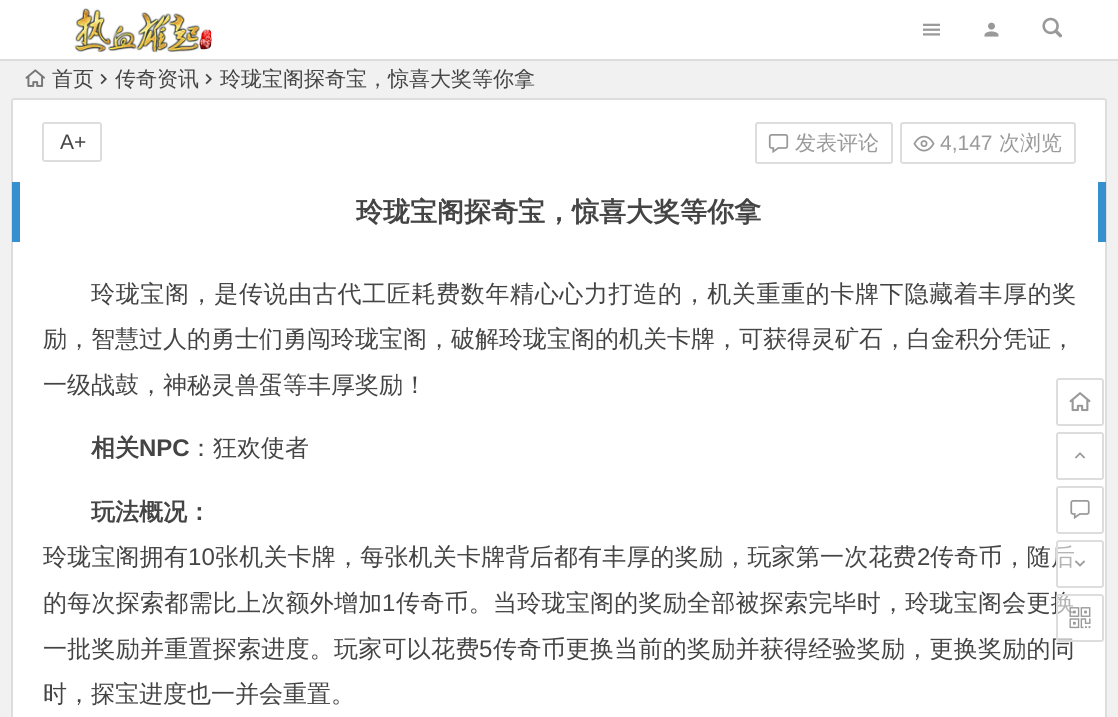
#include <cairo.h>
#include <math.h>
#include <stddef.h>


static void ink(cairo_t *ctx, unsigned color) {
    cairo_set_source_rgb(ctx, (color >> 16) / 255.0, (color >> 8 & 255) / 255.0, (color & 255) / 255.0);
}

static void write_spaced(cairo_t *ctx, double x, double y, const char *s, double letter, double word) {
    cairo_move_to(ctx, x, y);
    while (*s) {
        char ch[5] = {0};
        int n = 0;
        do ch[n++] = *s++; while ((*s & 0xC0) == 0x80);
        cairo_show_text(ctx, ch);
        cairo_rel_move_to(ctx, letter + word * (*ch == ' '), 0);
    }
}

static void round_path(cairo_t *ctx, double x, double y, double w, double h, double r) {
    cairo_new_sub_path(ctx);
    cairo_arc(ctx, x + w - r, y + h - r, r, 0, M_PI / 2);
    cairo_arc(ctx, x + r, y + h - r, r, M_PI / 2, M_PI);
    cairo_arc(ctx, x + r, y + r, r, M_PI, 1.5 * M_PI);
    cairo_arc(ctx, x + w - r, y + r, r, 1.5 * M_PI, 2 * M_PI);
    cairo_close_path(ctx);
}

static void paste(cairo_t *ctx, const char *path, double x, double y, double w, double h) {
    cairo_surface_t *image = cairo_image_surface_create_from_png(path);
    cairo_save(ctx);
    cairo_set_source_surface(ctx, image, x, y);
    cairo_rectangle(ctx, x, y, w, h);
    cairo_fill(ctx);
    cairo_restore(ctx);
    cairo_surface_destroy(image);
}

int main(void) {
    cairo_surface_t *surface = cairo_image_surface_create(CAIRO_FORMAT_RGB24, 1118, 717);
    cairo_t *ctx = cairo_create(surface);
    cairo_font_options_t *options = cairo_font_options_create();
    cairo_font_options_set_hint_metrics(options, CAIRO_HINT_METRICS_OFF);
    cairo_font_options_set_hint_style(options, CAIRO_HINT_STYLE_NONE);
    cairo_set_font_options(ctx, options);
    cairo_set_miter_limit(ctx, 4);
    ink(ctx, 0xF1F1F1);
    cairo_paint(ctx);
    ink(ctx, 0xFFFFFF);
    cairo_rectangle(ctx, 0, 0, 1118, 59);
    cairo_fill(ctx);
    ink(ctx, 0xDDDDDD);
    cairo_rectangle(ctx, 0, 59, 1118, 2);
    cairo_fill(ctx);
    paste(ctx, "media/1.png", 74, 8, 138, 45);
    paste(ctx, "media/2.png", 923, 23, 17, 13);
    paste(ctx, "media/3.png", 984, 22, 15, 15);
    paste(ctx, "media/4.png", 1042, 17, 21, 21);
    paste(ctx, "media/5.png", 25, 69, 20, 18);
    cairo_select_font_face(ctx, "WenQuanYi Zen Hei Medium", CAIRO_FONT_SLANT_NORMAL, CAIRO_FONT_WEIGHT_NORMAL);
    cairo_set_font_size(ctx, 21);
    ink(ctx, 0x444444);
    cairo_move_to(ctx, 52, 86);
    cairo_show_text(ctx, "首页");
    paste(ctx, "media/6.png", 100, 73, 7, 12);
    cairo_move_to(ctx, 115, 86);
    cairo_show_text(ctx, "传奇资讯");
    paste(ctx, "media/6.png", 205, 73, 7, 12);
    cairo_move_to(ctx, 220, 86);
    cairo_show_text(ctx, "玲珑宝阁探奇宝，惊喜大奖等你拿");
    ink(ctx, 0xFFFFFF);
    round_path(ctx, 12, 99, 1094, 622, 2);
    cairo_fill_preserve(ctx);
    ink(ctx, 0xDDDDDD);
    cairo_stroke(ctx);
    round_path(ctx, 43, 123, 58, 38, 2);
    cairo_stroke(ctx);
    cairo_select_font_face(ctx, "Liberation Sans", CAIRO_FONT_SLANT_NORMAL, CAIRO_FONT_WEIGHT_NORMAL);
    ink(ctx, 0x444444);
    cairo_move_to(ctx, 60, 149);
    cairo_show_text(ctx, "A+");
    round_path(ctx, 756, 123, 136, 40, 2);
    ink(ctx, 0xDDDDDD);
    cairo_stroke(ctx);
    paste(ctx, "media/7.png", 768, 134, 21, 19);
    cairo_select_font_face(ctx, "WenQuanYi Zen Hei Medium", CAIRO_FONT_SLANT_NORMAL, CAIRO_FONT_WEIGHT_NORMAL);
    ink(ctx, 0x999999);
    cairo_move_to(ctx, 795, 150);
    cairo_show_text(ctx, "发表评论");
    round_path(ctx, 901, 123, 174, 40, 2);
    ink(ctx, 0xDDDDDD);
    cairo_stroke(ctx);
    paste(ctx, "media/8.png", 913, 135, 22, 17);
    cairo_select_font_face(ctx, "Liberation Sans", CAIRO_FONT_SLANT_NORMAL, CAIRO_FONT_WEIGHT_NORMAL);
    ink(ctx, 0x999999);
    cairo_move_to(ctx, 940, 150);
    cairo_show_text(ctx, "4,147");
    cairo_select_font_face(ctx, "WenQuanYi Zen Hei Medium", CAIRO_FONT_SLANT_NORMAL, CAIRO_FONT_WEIGHT_NORMAL);
    cairo_move_to(ctx, 999, 150);
    cairo_show_text(ctx, "次浏览");
    cairo_set_font_size(ctx, 24);
    ink(ctx, 0x444444);
    write_spaced(ctx, 91, 302, "玲珑宝阁，是传说由古代工匠耗费数年精心心力打造的，机关重重的卡牌下隐藏着丰厚的奖", 0.65, 0);
    cairo_move_to(ctx, 43, 347);
    cairo_show_text(ctx, "励，智慧过人的勇士们勇闯玲珑宝阁，破解玲珑宝阁的机关卡牌，可获得灵矿石，白金积分凭证，");
    cairo_move_to(ctx, 43, 393);
    cairo_show_text(ctx, "一级战鼓，神秘灵兽蛋等丰厚奖励！");
    cairo_select_font_face(ctx, "WenQuanYi Zen Hei", CAIRO_FONT_SLANT_NORMAL, CAIRO_FONT_WEIGHT_BOLD);
    cairo_move_to(ctx, 91, 456);
    cairo_show_text(ctx, "相关");
    cairo_select_font_face(ctx, "Liberation Sans", CAIRO_FONT_SLANT_NORMAL, CAIRO_FONT_WEIGHT_BOLD);
    cairo_move_to(ctx, 139, 456);
    cairo_show_text(ctx, "NPC");
    cairo_select_font_face(ctx, "WenQuanYi Zen Hei Medium", CAIRO_FONT_SLANT_NORMAL, CAIRO_FONT_WEIGHT_NORMAL);
    cairo_move_to(ctx, 189, 456);
    cairo_show_text(ctx, "：狂欢使者");
    cairo_select_font_face(ctx, "WenQuanYi Zen Hei", CAIRO_FONT_SLANT_NORMAL, CAIRO_FONT_WEIGHT_BOLD);
    cairo_move_to(ctx, 91, 520);
    cairo_show_text(ctx, "玩法概况：");
    cairo_select_font_face(ctx, "WenQuanYi Zen Hei Medium", CAIRO_FONT_SLANT_NORMAL, CAIRO_FONT_WEIGHT_NORMAL);
    write_spaced(ctx, 43, 565, "玲珑宝阁拥有", 0.2, 0);
    cairo_select_font_face(ctx, "Liberation Sans", CAIRO_FONT_SLANT_NORMAL, CAIRO_FONT_WEIGHT_NORMAL);
    write_spaced(ctx, 188, 565, "10", 0.2, 0);
    cairo_select_font_face(ctx, "WenQuanYi Zen Hei Medium", CAIRO_FONT_SLANT_NORMAL, CAIRO_FONT_WEIGHT_NORMAL);
    write_spaced(ctx, 215, 565, "张机关卡牌，每张机关卡牌背后都有丰厚的奖励，玩家第一次花费", 0.2, 0);
    cairo_select_font_face(ctx, "Liberation Sans", CAIRO_FONT_SLANT_NORMAL, CAIRO_FONT_WEIGHT_NORMAL);
    write_spaced(ctx, 917, 565, "2", 0.2, 0);
    cairo_select_font_face(ctx, "WenQuanYi Zen Hei Medium", CAIRO_FONT_SLANT_NORMAL, CAIRO_FONT_WEIGHT_NORMAL);
    write_spaced(ctx, 930, 565, "传奇币，随后", 0.2, 0);
    write_spaced(ctx, 43, 611, "的每次探索都需比上次额外增加", 0.25, 0);
    cairo_select_font_face(ctx, "Liberation Sans", CAIRO_FONT_SLANT_NORMAL, CAIRO_FONT_WEIGHT_NORMAL);
    write_spaced(ctx, 382, 611, "1", 0.25, 0);
    cairo_select_font_face(ctx, "WenQuanYi Zen Hei Medium", CAIRO_FONT_SLANT_NORMAL, CAIRO_FONT_WEIGHT_NORMAL);
    write_spaced(ctx, 396, 611, "传奇币。当玲珑宝阁的奖励全部被探索完毕时，玲珑宝阁会更换", 0.25, 0);
    write_spaced(ctx, 43, 657, "一批奖励并重置探索进度。玩家可以花费", 0.25, 0);
    cairo_select_font_face(ctx, "Liberation Sans", CAIRO_FONT_SLANT_NORMAL, CAIRO_FONT_WEIGHT_NORMAL);
    write_spaced(ctx, 479, 657, "5", 0.25, 0);
    cairo_select_font_face(ctx, "WenQuanYi Zen Hei Medium", CAIRO_FONT_SLANT_NORMAL, CAIRO_FONT_WEIGHT_NORMAL);
    write_spaced(ctx, 493, 657, "传奇币更换当前的奖励并获得经验奖励，更换奖励的同", 0.25, 0);
    cairo_move_to(ctx, 43, 702);
    cairo_show_text(ctx, "时，探宝进度也一并会重置。");
    ink(ctx, 0x3690CF);
    cairo_rectangle(ctx, 1098, 182, 8, 60);
    cairo_fill(ctx);
    cairo_rectangle(ctx, 12, 182, 8, 60);
    cairo_fill(ctx);
    cairo_select_font_face(ctx, "WenQuanYi Zen Hei", CAIRO_FONT_SLANT_NORMAL, CAIRO_FONT_WEIGHT_BOLD);
    cairo_set_font_size(ctx, 27);
    ink(ctx, 0x444444);
    cairo_move_to(ctx, 356, 221);
    cairo_show_text(ctx, "玲珑宝阁探奇宝，惊喜大奖等你拿");
    round_path(ctx, 1057, 379, 46, 46, 2);
    ink(ctx, 0xDDDDDD);
    cairo_stroke(ctx);
    paste(ctx, "media/9.png", 1069, 392, 22, 20);
    round_path(ctx, 1057, 433, 46, 46, 2);
    cairo_stroke(ctx);
    paste(ctx, "media/10.png", 1074, 452, 12, 7);
    round_path(ctx, 1057, 487, 46, 46, 2);
    cairo_stroke(ctx);
    paste(ctx, "media/11.png", 1070, 500, 20, 19);
    cairo_set_source_rgba(ctx, 1, 1, 1, 0.6);
    round_path(ctx, 1057, 541, 46, 46, 2);
    cairo_fill_preserve(ctx);
    ink(ctx, 0xDDDDDD);
    cairo_stroke(ctx);
    paste(ctx, "media/12.png", 1074, 560, 12, 7);
    cairo_set_source_rgba(ctx, 1, 1, 1, 0.6);
    round_path(ctx, 1057, 595, 46, 46, 2);
    cairo_fill_preserve(ctx);
    ink(ctx, 0xDDDDDD);
    cairo_stroke(ctx);
    paste(ctx, "media/13.png", 1069, 607, 22, 22);
    cairo_surface_write_to_png(surface, "image.png");
    cairo_font_options_destroy(options);
    cairo_destroy(ctx);
    cairo_surface_destroy(surface);
    return 0;
}
